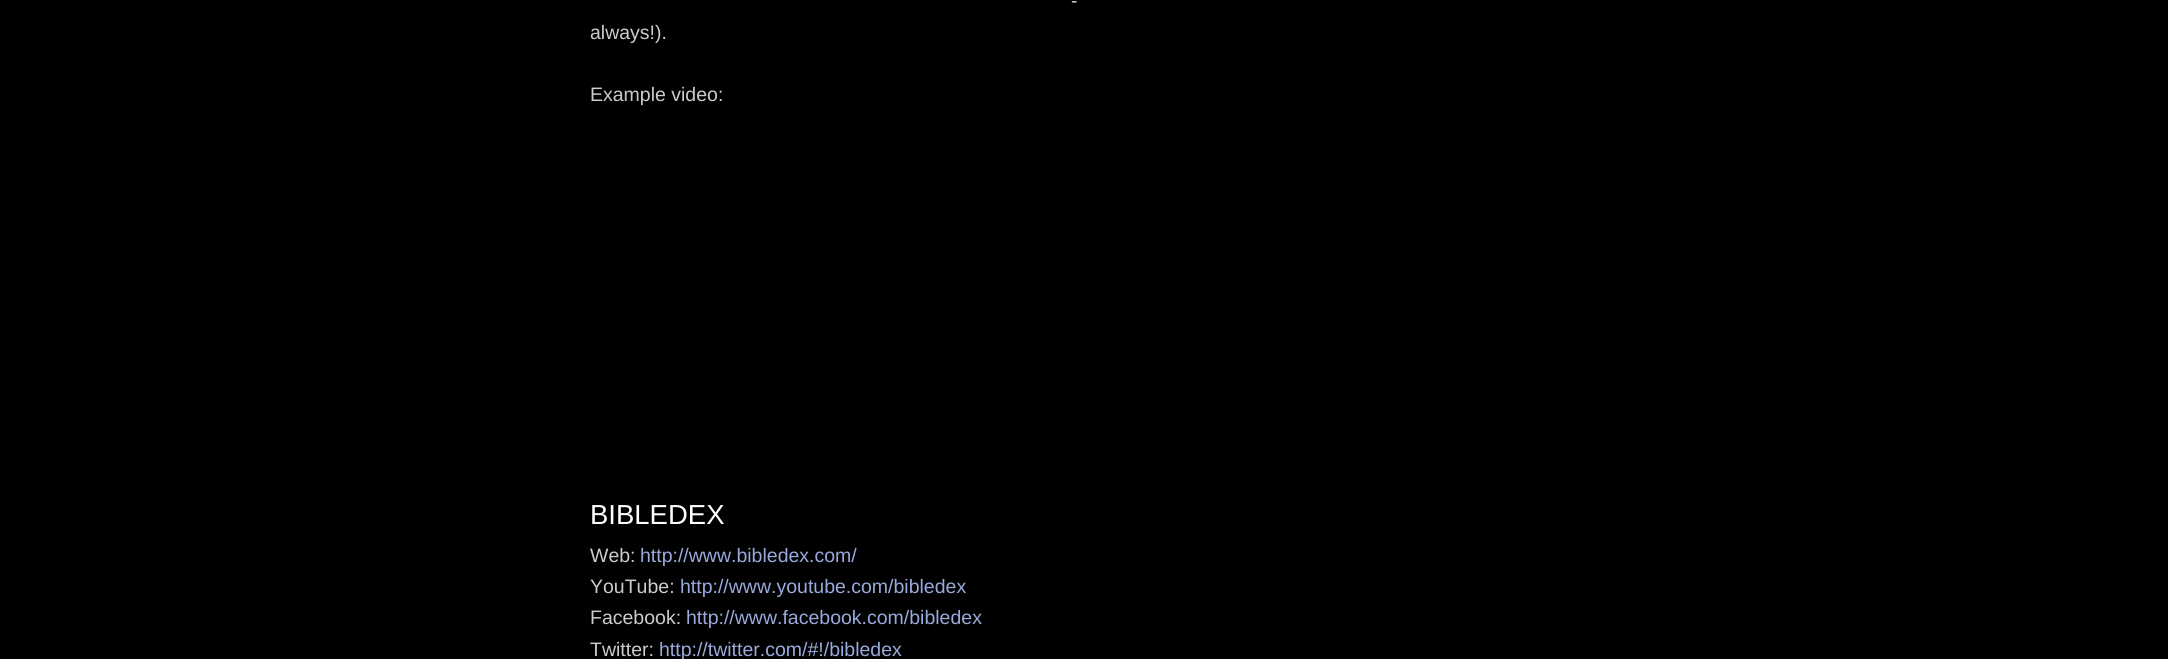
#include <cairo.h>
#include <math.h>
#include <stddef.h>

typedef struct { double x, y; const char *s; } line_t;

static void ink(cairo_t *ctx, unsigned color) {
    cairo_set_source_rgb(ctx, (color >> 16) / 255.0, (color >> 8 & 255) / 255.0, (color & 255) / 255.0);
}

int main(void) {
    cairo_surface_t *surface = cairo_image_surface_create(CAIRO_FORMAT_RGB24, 2168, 659);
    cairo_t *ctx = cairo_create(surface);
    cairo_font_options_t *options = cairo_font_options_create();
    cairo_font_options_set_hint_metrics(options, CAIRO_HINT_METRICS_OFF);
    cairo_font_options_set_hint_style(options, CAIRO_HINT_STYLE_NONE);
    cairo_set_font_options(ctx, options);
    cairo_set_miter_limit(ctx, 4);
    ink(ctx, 0x000000);
    cairo_paint(ctx);
    cairo_select_font_face(ctx, "Liberation Sans", CAIRO_FONT_SLANT_NORMAL, CAIRO_FONT_WEIGHT_NORMAL);
    cairo_set_font_size(ctx, 19.5);
    ink(ctx, 0xCCCCCC);
    {
        static const line_t items[] = {
            {1071, 7, "-"},
            {590, 39, "always!)."},
            {590, 101, "Example video:"},
        };
        for (size_t i = 0; i < sizeof items / sizeof *items; i++) {
            cairo_move_to(ctx, items[i].x, items[i].y);
            cairo_show_text(ctx, items[i].s);
        }
    }
    cairo_set_font_size(ctx, 27.5);
    ink(ctx, 0xFFFFFF);
    cairo_move_to(ctx, 590, 524);
    cairo_show_text(ctx, "BIBLEDEX");
    cairo_set_font_size(ctx, 19.5);
    ink(ctx, 0xCCCCCC);
    cairo_move_to(ctx, 590, 562);
    cairo_show_text(ctx, "Web:");
    ink(ctx, 0x99AADD);
    cairo_move_to(ctx, 640, 562);
    cairo_show_text(ctx, "http://www.bibledex.com/");
    ink(ctx, 0xCCCCCC);
    cairo_move_to(ctx, 590, 593);
    cairo_show_text(ctx, "YouTube:");
    ink(ctx, 0x99AADD);
    cairo_move_to(ctx, 680, 593);
    cairo_show_text(ctx, "http://www.youtube.com/bibledex");
    ink(ctx, 0xCCCCCC);
    cairo_move_to(ctx, 590, 624);
    cairo_show_text(ctx, "Facebook:");
    ink(ctx, 0x99AADD);
    cairo_move_to(ctx, 686, 624);
    cairo_show_text(ctx, "http://www.facebook.com/bibledex");
    ink(ctx, 0xCCCCCC);
    cairo_move_to(ctx, 590, 656);
    cairo_show_text(ctx, "Twitter:");
    ink(ctx, 0x99AADD);
    cairo_move_to(ctx, 659, 656);
    cairo_show_text(ctx, "http://twitter.com/#!/bibledex");
    cairo_surface_write_to_png(surface, "image.png");
    cairo_font_options_destroy(options);
    cairo_destroy(ctx);
    cairo_surface_destroy(surface);
    return 0;
}
